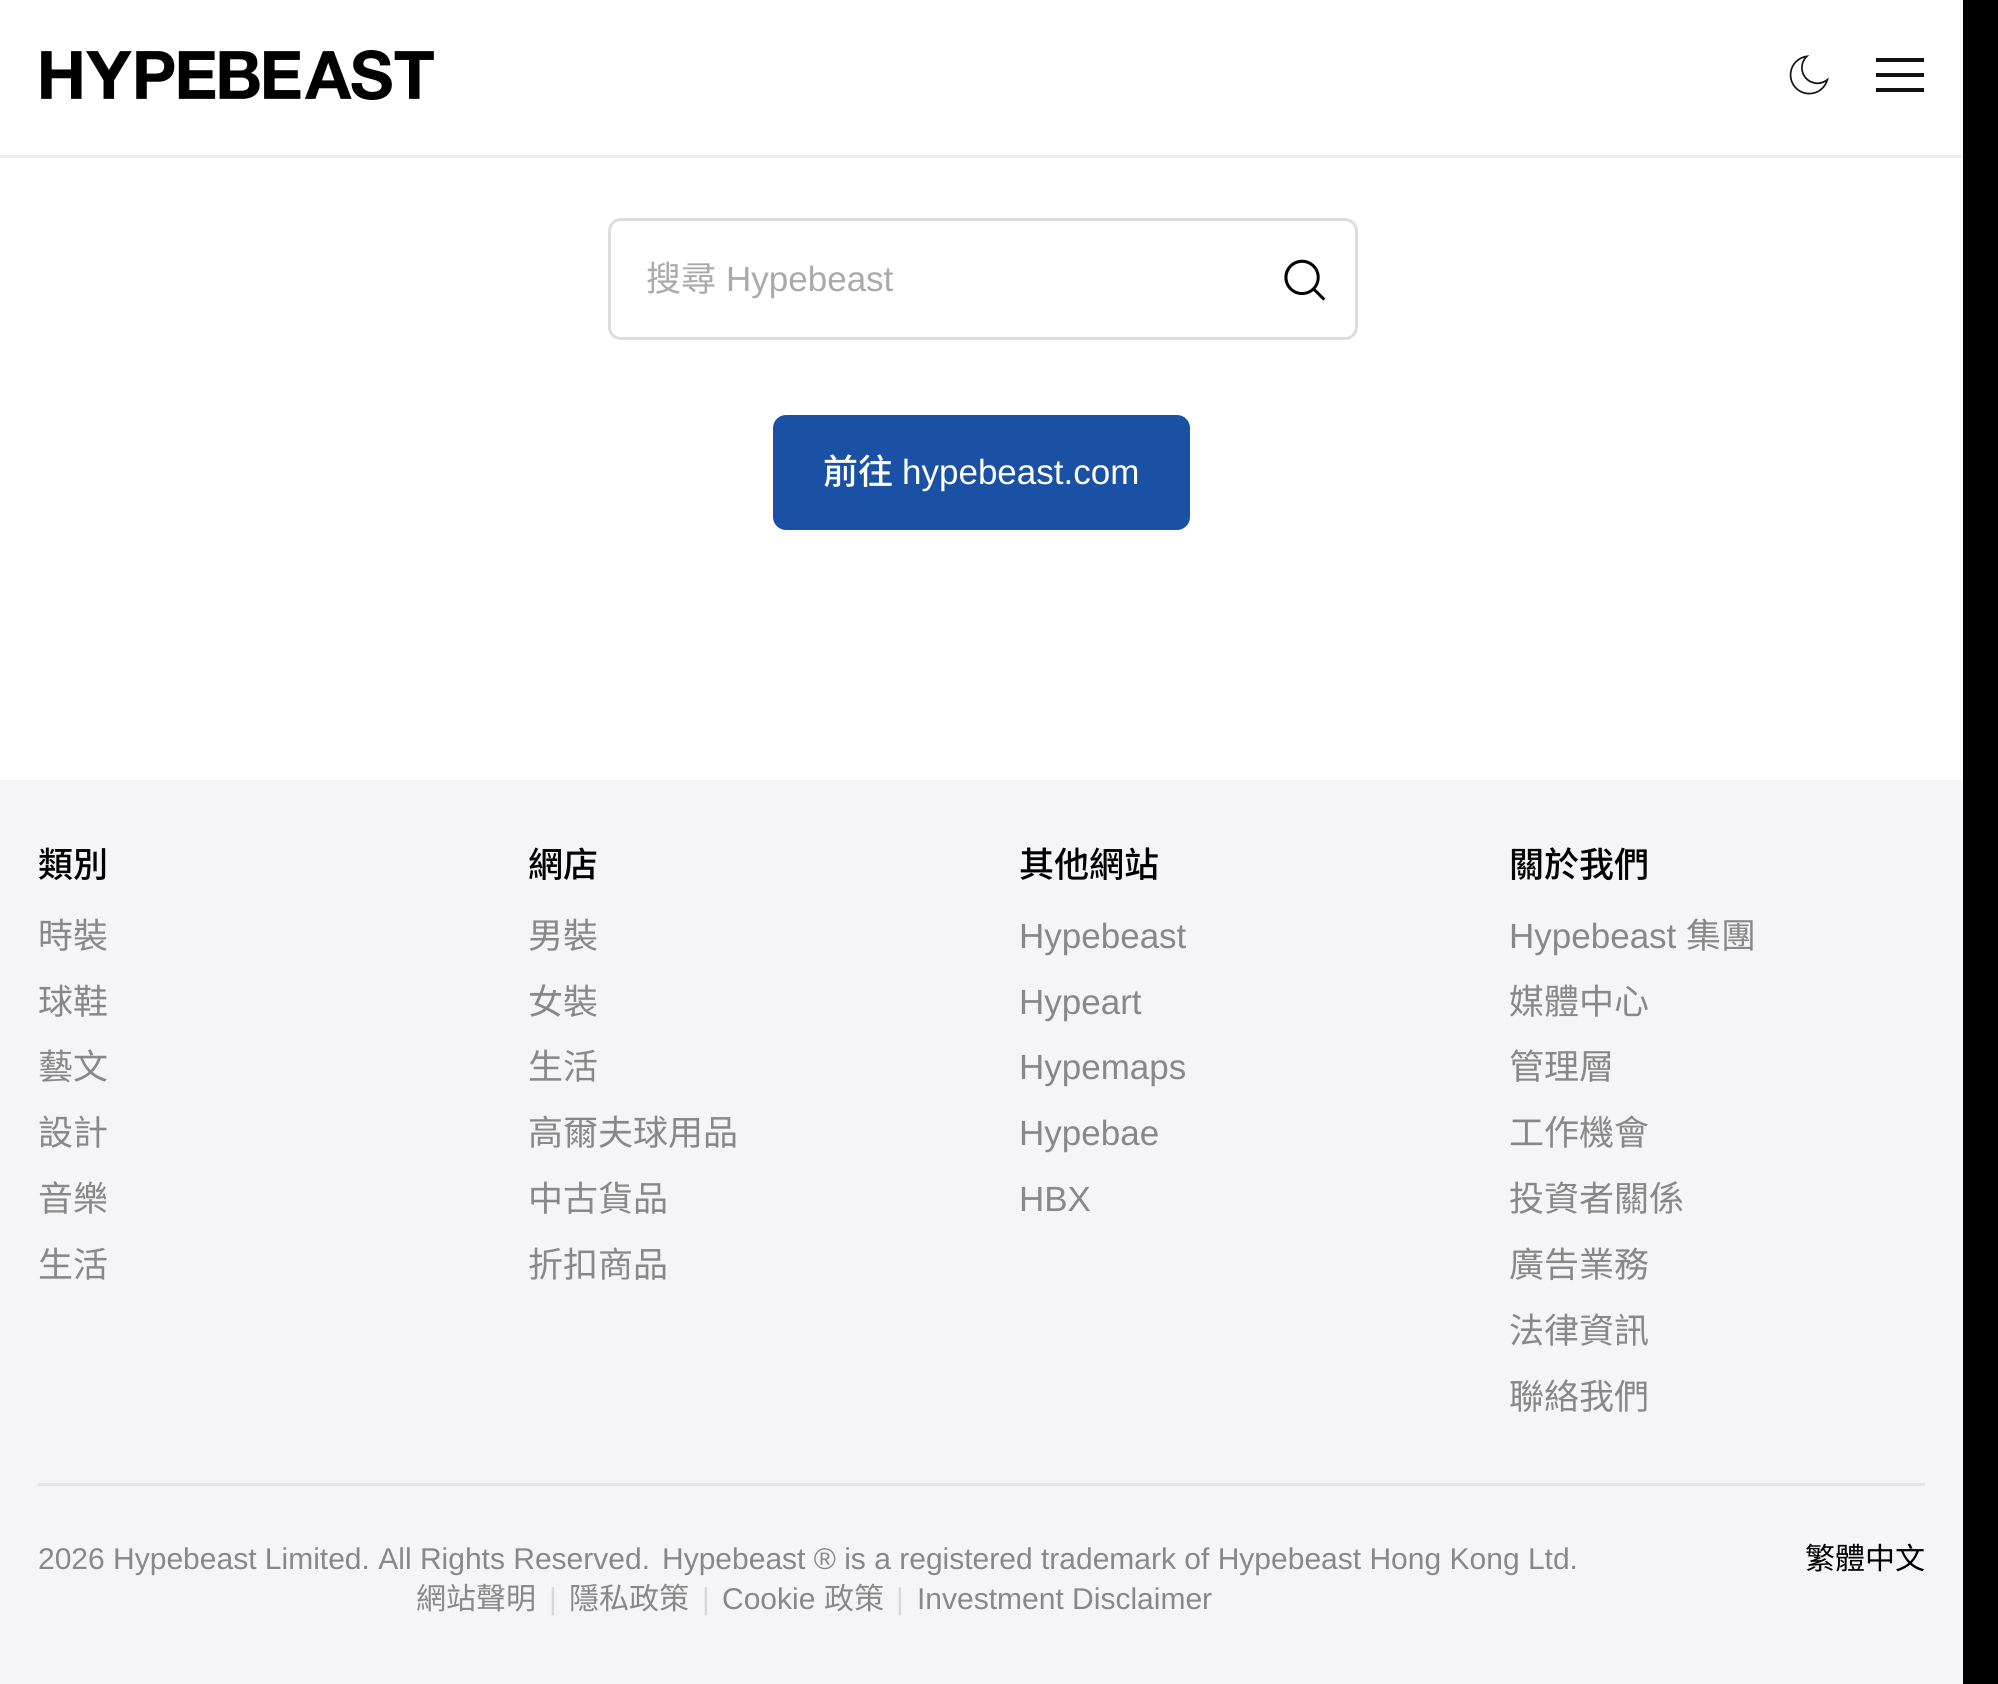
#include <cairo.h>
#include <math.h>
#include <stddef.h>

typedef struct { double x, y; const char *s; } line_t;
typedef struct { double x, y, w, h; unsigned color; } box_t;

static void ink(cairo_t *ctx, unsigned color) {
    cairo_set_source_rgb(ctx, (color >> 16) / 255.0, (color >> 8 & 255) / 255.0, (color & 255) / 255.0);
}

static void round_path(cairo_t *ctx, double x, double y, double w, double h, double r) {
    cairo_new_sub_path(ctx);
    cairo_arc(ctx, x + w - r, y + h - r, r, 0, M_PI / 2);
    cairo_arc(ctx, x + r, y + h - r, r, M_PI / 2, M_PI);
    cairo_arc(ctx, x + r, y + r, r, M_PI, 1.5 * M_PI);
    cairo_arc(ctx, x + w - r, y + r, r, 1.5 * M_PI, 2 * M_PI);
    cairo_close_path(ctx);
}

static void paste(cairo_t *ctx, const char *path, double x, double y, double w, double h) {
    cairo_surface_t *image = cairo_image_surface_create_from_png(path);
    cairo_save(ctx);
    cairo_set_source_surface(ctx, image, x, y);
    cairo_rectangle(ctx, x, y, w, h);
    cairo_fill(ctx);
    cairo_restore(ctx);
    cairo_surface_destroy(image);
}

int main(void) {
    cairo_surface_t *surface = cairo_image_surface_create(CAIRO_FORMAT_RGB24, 1998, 1684);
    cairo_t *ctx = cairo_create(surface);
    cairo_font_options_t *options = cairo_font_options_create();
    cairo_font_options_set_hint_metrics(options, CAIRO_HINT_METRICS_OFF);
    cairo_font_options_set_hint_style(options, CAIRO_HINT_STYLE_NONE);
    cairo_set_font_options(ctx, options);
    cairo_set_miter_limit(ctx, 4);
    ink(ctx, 0x000000);
    cairo_paint(ctx);
    {
        static const box_t items[] = {
            {0, 158, 1963, 622, 0xFFFFFF},
            {0, 0, 1963, 155, 0xFFFFFF},
            {0, 155, 1963, 3, 0xEEEEEE},
        };
        for (size_t i = 0; i < sizeof items / sizeof *items; i++) {
            ink(ctx, items[i].color);
            cairo_rectangle(ctx, items[i].x, items[i].y, items[i].w, items[i].h);
            cairo_fill(ctx);
        }
    }
    paste(ctx, "media/1.png", 41, 50, 393, 50);
    paste(ctx, "media/2.png", 1789, 55, 40, 40);
    ink(ctx, 0x111111);
    cairo_new_path(ctx);
    cairo_move_to(ctx, 1876, 58);
    cairo_line_to(ctx, 1924, 58);
    cairo_line_to(ctx, 1924, 62);
    cairo_line_to(ctx, 1876, 62);
    cairo_close_path(ctx);
    cairo_move_to(ctx, 1876, 73);
    cairo_line_to(ctx, 1924, 73);
    cairo_line_to(ctx, 1924, 77);
    cairo_line_to(ctx, 1876, 77);
    cairo_close_path(ctx);
    cairo_move_to(ctx, 1876, 88);
    cairo_line_to(ctx, 1924, 88);
    cairo_line_to(ctx, 1924, 92);
    cairo_line_to(ctx, 1876, 92);
    cairo_close_path(ctx);
    cairo_fill(ctx);
    round_path(ctx, 609.5, 219.5, 747, 119, 11.5);
    ink(ctx, 0xDDDDDD);
    cairo_set_line_width(ctx, 3);
    cairo_stroke(ctx);
    cairo_select_font_face(ctx, "Noto Sans TC", CAIRO_FONT_SLANT_NORMAL, CAIRO_FONT_WEIGHT_NORMAL);
    cairo_set_font_size(ctx, 35);
    ink(ctx, 0xAAAAAA);
    cairo_move_to(ctx, 646, 291);
    cairo_show_text(ctx, "搜尋");
    cairo_select_font_face(ctx, "Liberation Sans", CAIRO_FONT_SLANT_NORMAL, CAIRO_FONT_WEIGHT_NORMAL);
    cairo_move_to(ctx, 726, 291);
    cairo_show_text(ctx, "Hypebeast");
    paste(ctx, "media/3.png", 1284, 259, 42, 42);
    ink(ctx, 0x1A51A5);
    round_path(ctx, 773, 415, 417, 115, 13);
    cairo_fill(ctx);
    cairo_select_font_face(ctx, "Noto Sans TC Medium", CAIRO_FONT_SLANT_NORMAL, CAIRO_FONT_WEIGHT_NORMAL);
    ink(ctx, 0xFFFFFF);
    cairo_move_to(ctx, 823, 484);
    cairo_show_text(ctx, "前往");
    cairo_select_font_face(ctx, "Liberation Sans", CAIRO_FONT_SLANT_NORMAL, CAIRO_FONT_WEIGHT_NORMAL);
    cairo_move_to(ctx, 902, 484);
    cairo_show_text(ctx, "hypebeast.com");
    ink(ctx, 0xF5F5F7);
    cairo_rectangle(ctx, 0, 780, 1963, 904);
    cairo_fill(ctx);
    cairo_select_font_face(ctx, "Noto Sans TC Medium", CAIRO_FONT_SLANT_NORMAL, CAIRO_FONT_WEIGHT_NORMAL);
    ink(ctx, 0x000000);
    cairo_move_to(ctx, 38, 877);
    cairo_show_text(ctx, "類別");
    cairo_select_font_face(ctx, "Noto Sans TC", CAIRO_FONT_SLANT_NORMAL, CAIRO_FONT_WEIGHT_NORMAL);
    ink(ctx, 0x888888);
    {
        static const line_t items[] = {
            {38, 948, "時裝"},
            {38, 1014, "球鞋"},
            {38, 1079, "藝文"},
            {38, 1145, "設計"},
            {38, 1211, "音樂"},
            {38, 1277, "生活"},
        };
        for (size_t i = 0; i < sizeof items / sizeof *items; i++) {
            cairo_move_to(ctx, items[i].x, items[i].y);
            cairo_show_text(ctx, items[i].s);
        }
    }
    cairo_select_font_face(ctx, "Noto Sans TC Medium", CAIRO_FONT_SLANT_NORMAL, CAIRO_FONT_WEIGHT_NORMAL);
    ink(ctx, 0x000000);
    cairo_move_to(ctx, 528, 877);
    cairo_show_text(ctx, "網店");
    cairo_select_font_face(ctx, "Noto Sans TC", CAIRO_FONT_SLANT_NORMAL, CAIRO_FONT_WEIGHT_NORMAL);
    ink(ctx, 0x888888);
    {
        static const line_t items[] = {
            {528, 948, "男裝"},
            {528, 1014, "女裝"},
            {528, 1079, "生活"},
            {528, 1145, "高爾夫球用品"},
            {528, 1211, "中古貨品"},
            {528, 1277, "折扣商品"},
        };
        for (size_t i = 0; i < sizeof items / sizeof *items; i++) {
            cairo_move_to(ctx, items[i].x, items[i].y);
            cairo_show_text(ctx, items[i].s);
        }
    }
    cairo_select_font_face(ctx, "Noto Sans TC Medium", CAIRO_FONT_SLANT_NORMAL, CAIRO_FONT_WEIGHT_NORMAL);
    ink(ctx, 0x000000);
    cairo_move_to(ctx, 1019, 877);
    cairo_show_text(ctx, "其他網站");
    cairo_select_font_face(ctx, "Liberation Sans", CAIRO_FONT_SLANT_NORMAL, CAIRO_FONT_WEIGHT_NORMAL);
    ink(ctx, 0x888888);
    {
        static const line_t items[] = {
            {1019, 948, "Hypebeast"},
            {1019, 1014, "Hypeart"},
            {1019, 1079, "Hypemaps"},
            {1019, 1145, "Hypebae"},
            {1019, 1211, "HBX"},
        };
        for (size_t i = 0; i < sizeof items / sizeof *items; i++) {
            cairo_move_to(ctx, items[i].x, items[i].y);
            cairo_show_text(ctx, items[i].s);
        }
    }
    cairo_select_font_face(ctx, "Noto Sans TC Medium", CAIRO_FONT_SLANT_NORMAL, CAIRO_FONT_WEIGHT_NORMAL);
    ink(ctx, 0x000000);
    cairo_move_to(ctx, 1509, 877);
    cairo_show_text(ctx, "關於我們");
    cairo_select_font_face(ctx, "Liberation Sans", CAIRO_FONT_SLANT_NORMAL, CAIRO_FONT_WEIGHT_NORMAL);
    ink(ctx, 0x888888);
    cairo_move_to(ctx, 1509, 948);
    cairo_show_text(ctx, "Hypebeast");
    cairo_select_font_face(ctx, "Noto Sans TC", CAIRO_FONT_SLANT_NORMAL, CAIRO_FONT_WEIGHT_NORMAL);
    {
        static const line_t items[] = {
            {1686, 948, "集團"},
            {1509, 1014, "媒體中心"},
            {1509, 1079, "管理層"},
            {1509, 1145, "工作機會"},
            {1509, 1211, "投資者關係"},
            {1509, 1277, "廣告業務"},
            {1509, 1343, "法律資訊"},
            {1509, 1409, "聯絡我們"},
        };
        for (size_t i = 0; i < sizeof items / sizeof *items; i++) {
            cairo_move_to(ctx, items[i].x, items[i].y);
            cairo_show_text(ctx, items[i].s);
        }
    }
    ink(ctx, 0xE6E6E6);
    cairo_rectangle(ctx, 38, 1483, 1887, 3);
    cairo_fill(ctx);
    cairo_select_font_face(ctx, "Liberation Sans", CAIRO_FONT_SLANT_NORMAL, CAIRO_FONT_WEIGHT_NORMAL);
    cairo_set_font_size(ctx, 30);
    ink(ctx, 0x888888);
    cairo_move_to(ctx, 38, 1569);
    cairo_show_text(ctx, "2026 Hypebeast Limited. All Rights Reserved.");
    cairo_move_to(ctx, 662, 1569);
    cairo_show_text(ctx, "Hypebeast ® is a registered trademark of Hypebeast Hong Kong Ltd.");
    cairo_select_font_face(ctx, "Noto Sans TC", CAIRO_FONT_SLANT_NORMAL, CAIRO_FONT_WEIGHT_NORMAL);
    cairo_move_to(ctx, 416, 1609);
    cairo_show_text(ctx, "網站聲明");
    cairo_select_font_face(ctx, "Liberation Sans", CAIRO_FONT_SLANT_NORMAL, CAIRO_FONT_WEIGHT_NORMAL);
    ink(ctx, 0xD7D7D7);
    cairo_move_to(ctx, 549, 1609);
    cairo_show_text(ctx, "|");
    cairo_select_font_face(ctx, "Noto Sans TC", CAIRO_FONT_SLANT_NORMAL, CAIRO_FONT_WEIGHT_NORMAL);
    ink(ctx, 0x888888);
    cairo_move_to(ctx, 569, 1609);
    cairo_show_text(ctx, "隱私政策");
    cairo_select_font_face(ctx, "Liberation Sans", CAIRO_FONT_SLANT_NORMAL, CAIRO_FONT_WEIGHT_NORMAL);
    ink(ctx, 0xD7D7D7);
    cairo_move_to(ctx, 702, 1609);
    cairo_show_text(ctx, "|");
    ink(ctx, 0x888888);
    cairo_move_to(ctx, 722, 1609);
    cairo_show_text(ctx, "Cookie");
    cairo_select_font_face(ctx, "Noto Sans TC", CAIRO_FONT_SLANT_NORMAL, CAIRO_FONT_WEIGHT_NORMAL);
    cairo_move_to(ctx, 824, 1609);
    cairo_show_text(ctx, "政策");
    cairo_select_font_face(ctx, "Liberation Sans", CAIRO_FONT_SLANT_NORMAL, CAIRO_FONT_WEIGHT_NORMAL);
    ink(ctx, 0xD7D7D7);
    cairo_move_to(ctx, 896, 1609);
    cairo_show_text(ctx, "|");
    ink(ctx, 0x888888);
    cairo_move_to(ctx, 917, 1609);
    cairo_show_text(ctx, "Investment Disclaimer");
    cairo_select_font_face(ctx, "Noto Sans TC", CAIRO_FONT_SLANT_NORMAL, CAIRO_FONT_WEIGHT_NORMAL);
    ink(ctx, 0x000000);
    cairo_move_to(ctx, 1805, 1569);
    cairo_show_text(ctx, "繁體中文");
    cairo_surface_write_to_png(surface, "image.png");
    cairo_font_options_destroy(options);
    cairo_destroy(ctx);
    cairo_surface_destroy(surface);
    return 0;
}
